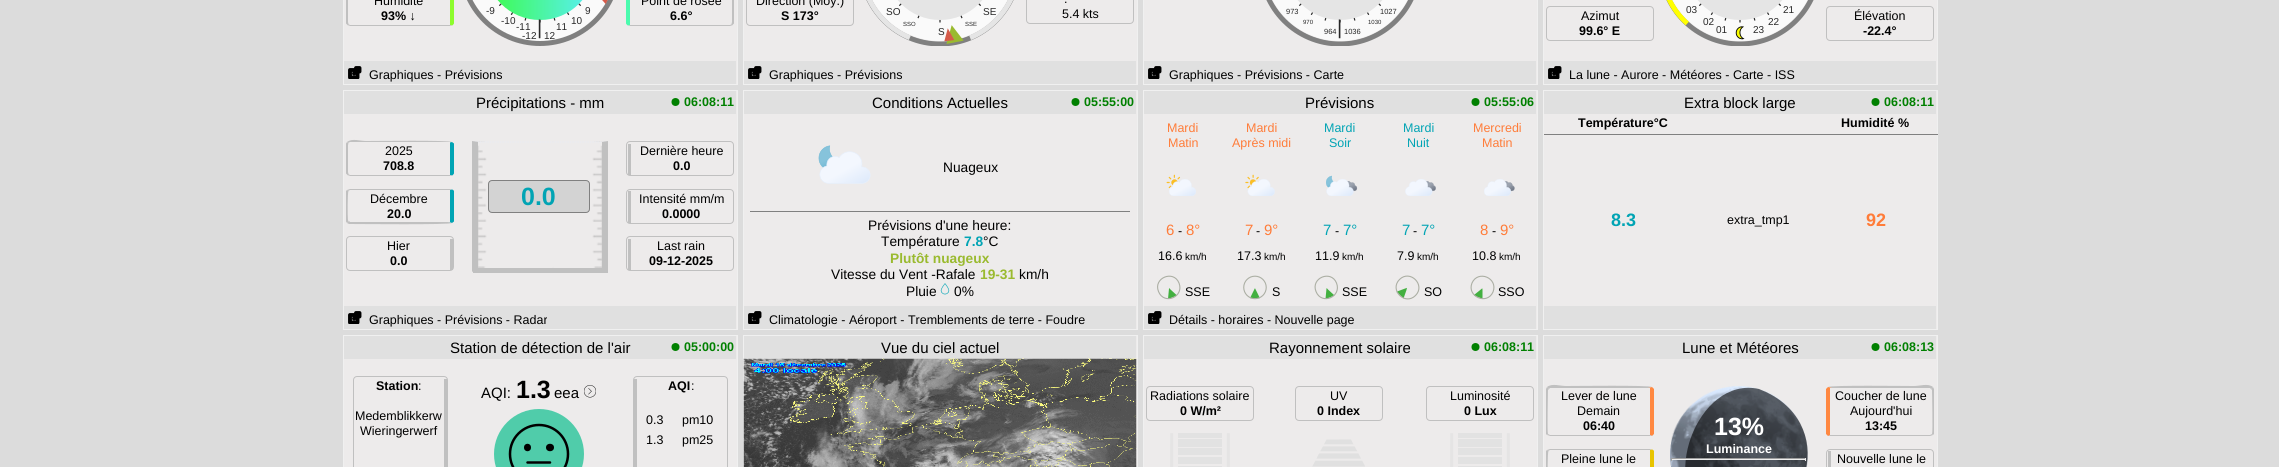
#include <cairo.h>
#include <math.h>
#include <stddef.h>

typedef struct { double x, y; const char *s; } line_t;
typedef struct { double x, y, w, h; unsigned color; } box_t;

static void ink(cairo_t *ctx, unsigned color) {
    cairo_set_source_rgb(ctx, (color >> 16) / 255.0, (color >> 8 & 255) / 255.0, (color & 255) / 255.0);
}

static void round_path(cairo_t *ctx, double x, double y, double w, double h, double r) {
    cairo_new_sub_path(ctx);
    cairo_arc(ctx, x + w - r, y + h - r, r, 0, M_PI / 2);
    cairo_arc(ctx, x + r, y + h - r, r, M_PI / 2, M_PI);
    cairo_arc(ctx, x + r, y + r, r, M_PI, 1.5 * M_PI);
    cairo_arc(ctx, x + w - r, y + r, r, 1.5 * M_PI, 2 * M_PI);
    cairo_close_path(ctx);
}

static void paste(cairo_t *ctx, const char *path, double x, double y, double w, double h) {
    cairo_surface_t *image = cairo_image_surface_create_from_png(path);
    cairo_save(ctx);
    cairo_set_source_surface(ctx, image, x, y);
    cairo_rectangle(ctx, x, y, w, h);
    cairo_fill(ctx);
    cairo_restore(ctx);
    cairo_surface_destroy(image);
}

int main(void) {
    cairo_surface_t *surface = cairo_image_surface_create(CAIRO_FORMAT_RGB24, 2279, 467);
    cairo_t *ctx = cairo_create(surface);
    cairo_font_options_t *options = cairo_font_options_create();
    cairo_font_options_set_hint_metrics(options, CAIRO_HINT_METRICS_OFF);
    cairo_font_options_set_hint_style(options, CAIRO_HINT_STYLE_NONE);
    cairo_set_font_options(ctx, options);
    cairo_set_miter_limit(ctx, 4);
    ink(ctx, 0xDCDCDC);
    cairo_paint(ctx);
    ink(ctx, 0xEDEBEB);
    cairo_rectangle(ctx, 343.5, -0.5, 394, 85);
    cairo_fill_preserve(ctx);
    ink(ctx, 0xF0F0F0);
    cairo_set_line_width(ctx, 1);
    cairo_stroke(ctx);
    ink(ctx, 0x8DFC2D);
    cairo_new_path(ctx);
    cairo_move_to(ctx, 454, 23.5);
    cairo_curve_to(ctx, 453.5, 24.5, 452.5, 25.5, 452, 25.5);
    cairo_line_to(ctx, 450, 25);
    cairo_line_to(ctx, 450, -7.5);
    cairo_line_to(ctx, 452, -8);
    cairo_line_to(ctx, 454, -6.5);
    cairo_close_path(ctx);
    cairo_fill(ctx);
    ink(ctx, 0xC0C0C0);
    cairo_new_path(ctx);
    cairo_move_to(ctx, 452, 26);
    cairo_line_to(ctx, 350, 26);
    cairo_line_to(ctx, 347, 25);
    cairo_line_to(ctx, 348, 24);
    cairo_line_to(ctx, 350, 25);
    cairo_line_to(ctx, 450, 25);
    cairo_close_path(ctx);
    cairo_fill(ctx);
    cairo_new_path(ctx);
    cairo_move_to(ctx, 346, -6.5);
    cairo_line_to(ctx, 347, -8);
    cairo_line_to(ctx, 348.5, -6.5);
    cairo_line_to(ctx, 348, -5);
    cairo_line_to(ctx, 348, 22);
    cairo_line_to(ctx, 348.5, 24);
    cairo_line_to(ctx, 347.5, 25);
    cairo_line_to(ctx, 346, 23.5);
    cairo_close_path(ctx);
    cairo_fill(ctx);
    cairo_select_font_face(ctx, "Liberation Sans", CAIRO_FONT_SLANT_NORMAL, CAIRO_FONT_WEIGHT_NORMAL);
    cairo_set_font_size(ctx, 12.5);
    ink(ctx, 0x000000);
    cairo_move_to(ctx, 374, 5);
    cairo_show_text(ctx, "Humidité");
    cairo_select_font_face(ctx, "Liberation Sans", CAIRO_FONT_SLANT_NORMAL, CAIRO_FONT_WEIGHT_BOLD);
    cairo_move_to(ctx, 381, 20);
    cairo_show_text(ctx, "93% ↓");
    paste(ctx, "media/1.png", 467, 0, 146, 46);
    cairo_select_font_face(ctx, "Liberation Sans", CAIRO_FONT_SLANT_NORMAL, CAIRO_FONT_WEIGHT_NORMAL);
    cairo_set_font_size(ctx, 10);
    ink(ctx, 0x282828);
    {
        static const line_t items[] = {
            {486, 14, "-9"},
            {585, 14, "9"},
            {501, 24, "-10"},
            {516, 30, "-11"},
        };
        for (size_t i = 0; i < sizeof items / sizeof *items; i++) {
            cairo_move_to(ctx, items[i].x, items[i].y);
            cairo_show_text(ctx, items[i].s);
        }
    }
    cairo_set_font_size(ctx, 20);
    cairo_move_to(ctx, 537, 34);
    cairo_show_text(ctx, "|");
    cairo_set_font_size(ctx, 10);
    {
        static const line_t items[] = {
            {556, 30, "11"},
            {571, 24, "10"},
            {522, 39, "-12"},
            {544, 39, "12"},
        };
        for (size_t i = 0; i < sizeof items / sizeof *items; i++) {
            cairo_move_to(ctx, items[i].x, items[i].y);
            cairo_show_text(ctx, items[i].s);
        }
    }
    ink(ctx, 0xC0C0C0);
    cairo_new_path(ctx);
    cairo_move_to(ctx, 734, 23.5);
    cairo_line_to(ctx, 732.5, 25);
    cairo_line_to(ctx, 731.5, 24);
    cairo_line_to(ctx, 732, 22);
    cairo_line_to(ctx, 732, -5);
    cairo_line_to(ctx, 731.5, -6.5);
    cairo_line_to(ctx, 733, -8);
    cairo_line_to(ctx, 734, -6.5);
    cairo_close_path(ctx);
    cairo_fill(ctx);
    cairo_new_path(ctx);
    cairo_move_to(ctx, 733, 25);
    cairo_line_to(ctx, 730, 26);
    cairo_line_to(ctx, 628, 26);
    cairo_line_to(ctx, 630, 25);
    cairo_line_to(ctx, 730, 25);
    cairo_line_to(ctx, 732, 24);
    cairo_close_path(ctx);
    cairo_fill(ctx);
    ink(ctx, 0x4BFBAE);
    cairo_new_path(ctx);
    cairo_move_to(ctx, 626, -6.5);
    cairo_line_to(ctx, 628, -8);
    cairo_line_to(ctx, 630, -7.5);
    cairo_line_to(ctx, 630, 25);
    cairo_line_to(ctx, 628, 25.5);
    cairo_curve_to(ctx, 627.5, 25.5, 626.5, 24.5, 626, 23.5);
    cairo_close_path(ctx);
    cairo_fill(ctx);
    cairo_set_font_size(ctx, 12.5);
    ink(ctx, 0x000000);
    cairo_move_to(ctx, 641, 5);
    cairo_show_text(ctx, "Point de rosée");
    cairo_select_font_face(ctx, "Liberation Sans", CAIRO_FONT_SLANT_NORMAL, CAIRO_FONT_WEIGHT_BOLD);
    cairo_move_to(ctx, 670, 20);
    cairo_show_text(ctx, "6.6°");
    ink(ctx, 0xE0E0E0);
    cairo_rectangle(ctx, 344, 61, 392, 23);
    cairo_fill(ctx);
    cairo_select_font_face(ctx, "Liberation Sans", CAIRO_FONT_SLANT_NORMAL, CAIRO_FONT_WEIGHT_NORMAL);
    ink(ctx, 0x000000);
    cairo_move_to(ctx, 369, 79);
    cairo_show_text(ctx, "Graphiques - Prévisions");
    cairo_save(ctx);
    cairo_rectangle(ctx, 348, 66, 15, 13);
    cairo_clip(ctx);
    cairo_new_path(ctx);
    cairo_move_to(ctx, 354, 70);
    cairo_line_to(ctx, 350, 70);
    cairo_line_to(ctx, 350, 77.5);
    cairo_line_to(ctx, 357.5, 77.5);
    cairo_line_to(ctx, 357.5, 73.5);
    cairo_move_to(ctx, 356, 68);
    cairo_line_to(ctx, 359.5, 68);
    cairo_line_to(ctx, 359.5, 71.5);
    cairo_move_to(ctx, 359.5, 68);
    cairo_line_to(ctx, 354, 73.5);
    cairo_set_line_width(ctx, 3.9);
    cairo_set_line_cap(ctx, CAIRO_LINE_CAP_ROUND);
    cairo_set_line_join(ctx, CAIRO_LINE_JOIN_ROUND);
    cairo_stroke(ctx);
    cairo_restore(ctx);
    ink(ctx, 0xEDEBEB);
    cairo_rectangle(ctx, 743.5, -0.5, 394, 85);
    cairo_fill_preserve(ctx);
    ink(ctx, 0xF0F0F0);
    cairo_stroke(ctx);
    round_path(ctx, 746.5, -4.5, 107, 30, 3.5);
    ink(ctx, 0xC0C0C0);
    cairo_stroke(ctx);
    ink(ctx, 0x000000);
    cairo_move_to(ctx, 756, 5);
    cairo_show_text(ctx, "Direction (Moy.)");
    cairo_select_font_face(ctx, "Liberation Sans", CAIRO_FONT_SLANT_NORMAL, CAIRO_FONT_WEIGHT_BOLD);
    cairo_move_to(ctx, 781, 20);
    cairo_show_text(ctx, "S 173°");
    paste(ctx, "media/2.png", 866, 0, 148, 46);
    cairo_select_font_face(ctx, "Liberation Sans", CAIRO_FONT_SLANT_NORMAL, CAIRO_FONT_WEIGHT_NORMAL);
    cairo_set_font_size(ctx, 10);
    ink(ctx, 0x282828);
    cairo_move_to(ctx, 886, 15);
    cairo_show_text(ctx, "SO");
    cairo_move_to(ctx, 983, 15);
    cairo_show_text(ctx, "SE");
    cairo_set_font_size(ctx, 6);
    cairo_move_to(ctx, 903, 26);
    cairo_show_text(ctx, "SSO");
    cairo_move_to(ctx, 965, 26);
    cairo_show_text(ctx, "SSE");
    cairo_set_font_size(ctx, 10);
    cairo_move_to(ctx, 938, 35);
    cairo_show_text(ctx, "S");
    round_path(ctx, 1026.5, -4.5, 107, 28, 3.5);
    ink(ctx, 0xC0C0C0);
    cairo_stroke(ctx);
    cairo_set_font_size(ctx, 12.5);
    ink(ctx, 0x000000);
    cairo_move_to(ctx, 1064, 3);
    cairo_show_text(ctx, ".");
    cairo_move_to(ctx, 1062, 18);
    cairo_show_text(ctx, "5.4 kts");
    ink(ctx, 0xE0E0E0);
    cairo_rectangle(ctx, 744, 61, 392, 23);
    cairo_fill(ctx);
    ink(ctx, 0x000000);
    cairo_move_to(ctx, 769, 79);
    cairo_show_text(ctx, "Graphiques - Prévisions");
    cairo_save(ctx);
    cairo_rectangle(ctx, 748, 66, 15, 13);
    cairo_clip(ctx);
    cairo_new_path(ctx);
    cairo_move_to(ctx, 754, 70);
    cairo_line_to(ctx, 750, 70);
    cairo_line_to(ctx, 750, 77.5);
    cairo_line_to(ctx, 757.5, 77.5);
    cairo_line_to(ctx, 757.5, 73.5);
    cairo_move_to(ctx, 756, 68);
    cairo_line_to(ctx, 759.5, 68);
    cairo_line_to(ctx, 759.5, 71.5);
    cairo_move_to(ctx, 759.5, 68);
    cairo_line_to(ctx, 754, 73.5);
    cairo_set_line_width(ctx, 3.9);
    cairo_set_line_cap(ctx, CAIRO_LINE_CAP_ROUND);
    cairo_set_line_join(ctx, CAIRO_LINE_JOIN_ROUND);
    cairo_stroke(ctx);
    cairo_restore(ctx);
    ink(ctx, 0xEDEBEB);
    cairo_rectangle(ctx, 1143.5, -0.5, 394, 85);
    cairo_fill_preserve(ctx);
    ink(ctx, 0xF0F0F0);
    cairo_stroke(ctx);
    paste(ctx, "media/3.png", 1266, 0, 148, 46);
    cairo_set_font_size(ctx, 7.5);
    ink(ctx, 0x282828);
    cairo_move_to(ctx, 1286, 14);
    cairo_show_text(ctx, "973");
    cairo_move_to(ctx, 1380, 14);
    cairo_show_text(ctx, "1027");
    cairo_set_font_size(ctx, 6);
    cairo_move_to(ctx, 1303, 24);
    cairo_show_text(ctx, "970");
    cairo_set_font_size(ctx, 20);
    cairo_move_to(ctx, 1337, 34);
    cairo_show_text(ctx, "|");
    cairo_set_font_size(ctx, 6);
    cairo_move_to(ctx, 1368, 24);
    cairo_show_text(ctx, "1030");
    cairo_set_font_size(ctx, 7.5);
    cairo_move_to(ctx, 1324, 34);
    cairo_show_text(ctx, "964");
    cairo_move_to(ctx, 1344, 34);
    cairo_show_text(ctx, "1036");
    ink(ctx, 0xE0E0E0);
    cairo_rectangle(ctx, 1144, 61, 392, 23);
    cairo_fill(ctx);
    cairo_set_font_size(ctx, 12.5);
    ink(ctx, 0x000000);
    cairo_move_to(ctx, 1169, 79);
    cairo_show_text(ctx, "Graphiques - Prévisions - Carte");
    cairo_save(ctx);
    cairo_rectangle(ctx, 1148, 66, 15, 13);
    cairo_clip(ctx);
    cairo_new_path(ctx);
    cairo_move_to(ctx, 1154, 70);
    cairo_line_to(ctx, 1150, 70);
    cairo_line_to(ctx, 1150, 77.5);
    cairo_line_to(ctx, 1157.5, 77.5);
    cairo_line_to(ctx, 1157.5, 73.5);
    cairo_move_to(ctx, 1156, 68);
    cairo_line_to(ctx, 1159.5, 68);
    cairo_line_to(ctx, 1159.5, 71.5);
    cairo_move_to(ctx, 1159.5, 68);
    cairo_line_to(ctx, 1154, 73.5);
    cairo_set_line_width(ctx, 3.9);
    cairo_set_line_cap(ctx, CAIRO_LINE_CAP_ROUND);
    cairo_set_line_join(ctx, CAIRO_LINE_JOIN_ROUND);
    cairo_stroke(ctx);
    cairo_restore(ctx);
    ink(ctx, 0xEDEBEB);
    cairo_rectangle(ctx, 1543.5, -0.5, 394, 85);
    cairo_fill_preserve(ctx);
    ink(ctx, 0xF0F0F0);
    cairo_stroke(ctx);
    round_path(ctx, 1546.5, 6.5, 107, 34, 3.5);
    ink(ctx, 0xC0C0C0);
    cairo_stroke(ctx);
    ink(ctx, 0x000000);
    cairo_move_to(ctx, 1581, 20);
    cairo_show_text(ctx, "Azimut");
    cairo_select_font_face(ctx, "Liberation Sans", CAIRO_FONT_SLANT_NORMAL, CAIRO_FONT_WEIGHT_BOLD);
    cairo_move_to(ctx, 1579, 35);
    cairo_show_text(ctx, "99.6° E");
    paste(ctx, "media/4.png", 1666, 0, 148, 46);
    cairo_select_font_face(ctx, "Liberation Sans", CAIRO_FONT_SLANT_NORMAL, CAIRO_FONT_WEIGHT_NORMAL);
    cairo_set_font_size(ctx, 10);
    ink(ctx, 0x282828);
    {
        static const line_t items[] = {
            {1686, 13, "03"},
            {1783, 13, "21"},
            {1703, 25, "02"},
            {1768, 25, "22"},
            {1716, 33, "01"},
            {1753, 33, "23"},
        };
        for (size_t i = 0; i < sizeof items / sizeof *items; i++) {
            cairo_move_to(ctx, items[i].x, items[i].y);
            cairo_show_text(ctx, items[i].s);
        }
    }
    round_path(ctx, 1826.5, 6.5, 107, 34, 3.5);
    ink(ctx, 0xC0C0C0);
    cairo_stroke(ctx);
    cairo_set_font_size(ctx, 12.5);
    ink(ctx, 0x000000);
    cairo_move_to(ctx, 1854, 20);
    cairo_show_text(ctx, "Élévation");
    cairo_select_font_face(ctx, "Liberation Sans", CAIRO_FONT_SLANT_NORMAL, CAIRO_FONT_WEIGHT_BOLD);
    cairo_move_to(ctx, 1863, 35);
    cairo_show_text(ctx, "-22.4°");
    ink(ctx, 0xE0E0E0);
    cairo_rectangle(ctx, 1544, 61, 392, 23);
    cairo_fill(ctx);
    cairo_select_font_face(ctx, "Liberation Sans", CAIRO_FONT_SLANT_NORMAL, CAIRO_FONT_WEIGHT_NORMAL);
    ink(ctx, 0x000000);
    cairo_move_to(ctx, 1569, 79);
    cairo_show_text(ctx, "La lune - Aurore - Météores - Carte - ISS");
    cairo_save(ctx);
    cairo_rectangle(ctx, 1548, 66, 15, 13);
    cairo_clip(ctx);
    cairo_new_path(ctx);
    cairo_move_to(ctx, 1554, 70);
    cairo_line_to(ctx, 1550, 70);
    cairo_line_to(ctx, 1550, 77.5);
    cairo_line_to(ctx, 1557.5, 77.5);
    cairo_line_to(ctx, 1557.5, 73.5);
    cairo_move_to(ctx, 1556, 68);
    cairo_line_to(ctx, 1559.5, 68);
    cairo_line_to(ctx, 1559.5, 71.5);
    cairo_move_to(ctx, 1559.5, 68);
    cairo_line_to(ctx, 1554, 73.5);
    cairo_set_line_width(ctx, 3.9);
    cairo_set_line_cap(ctx, CAIRO_LINE_CAP_ROUND);
    cairo_set_line_join(ctx, CAIRO_LINE_JOIN_ROUND);
    cairo_stroke(ctx);
    cairo_restore(ctx);
    ink(ctx, 0xEDEBEB);
    cairo_rectangle(ctx, 343.5, 90.5, 394, 239);
    cairo_fill_preserve(ctx);
    ink(ctx, 0xF0F0F0);
    cairo_stroke(ctx);
    ink(ctx, 0xE0E0E0);
    cairo_rectangle(ctx, 344, 91, 392, 23);
    cairo_fill(ctx);
    cairo_set_font_size(ctx, 15);
    ink(ctx, 0x000000);
    cairo_move_to(ctx, 476, 108);
    cairo_show_text(ctx, "Précipitations - mm");
    cairo_select_font_face(ctx, "Liberation Sans", CAIRO_FONT_SLANT_NORMAL, CAIRO_FONT_WEIGHT_BOLD);
    cairo_set_font_size(ctx, 12.5);
    ink(ctx, 0x008000);
    cairo_move_to(ctx, 684, 106);
    cairo_show_text(ctx, "06:08:11");
    cairo_new_path(ctx);
    cairo_arc(ctx, 675.5, 102, 4, 0, 2 * M_PI);
    cairo_fill(ctx);
    ink(ctx, 0xC0C0C0);
    cairo_new_path(ctx);
    cairo_move_to(ctx, 350, 142);
    cairo_line_to(ctx, 348, 143);
    cairo_line_to(ctx, 347, 142);
    cairo_curve_to(ctx, 352, 138, 360, 141, 366, 141);
    cairo_curve_to(ctx, 375, 141, 450, 140, 452, 142);
    cairo_line_to(ctx, 450, 142);
    cairo_close_path(ctx);
    cairo_fill(ctx);
    ink(ctx, 0x01A4B4);
    cairo_new_path(ctx);
    cairo_move_to(ctx, 454, 173.5);
    cairo_curve_to(ctx, 453.5, 174.5, 452.5, 175.5, 452, 175.5);
    cairo_line_to(ctx, 450, 175);
    cairo_line_to(ctx, 450, 142.5);
    cairo_line_to(ctx, 452, 142);
    cairo_line_to(ctx, 454, 143.5);
    cairo_close_path(ctx);
    cairo_fill(ctx);
    ink(ctx, 0xC0C0C0);
    cairo_new_path(ctx);
    cairo_move_to(ctx, 452, 176);
    cairo_line_to(ctx, 350, 176);
    cairo_line_to(ctx, 347, 175);
    cairo_line_to(ctx, 348, 174);
    cairo_line_to(ctx, 350, 175);
    cairo_line_to(ctx, 450, 175);
    cairo_close_path(ctx);
    cairo_fill(ctx);
    cairo_new_path(ctx);
    cairo_move_to(ctx, 346, 143.5);
    cairo_line_to(ctx, 347, 142);
    cairo_line_to(ctx, 348.5, 143.5);
    cairo_line_to(ctx, 348, 145);
    cairo_line_to(ctx, 348, 172);
    cairo_line_to(ctx, 348.5, 174);
    cairo_line_to(ctx, 347.5, 175);
    cairo_line_to(ctx, 346, 173.5);
    cairo_close_path(ctx);
    cairo_fill(ctx);
    cairo_select_font_face(ctx, "Liberation Sans", CAIRO_FONT_SLANT_NORMAL, CAIRO_FONT_WEIGHT_NORMAL);
    ink(ctx, 0x000000);
    cairo_move_to(ctx, 385, 155);
    cairo_show_text(ctx, "2025");
    cairo_select_font_face(ctx, "Liberation Sans", CAIRO_FONT_SLANT_NORMAL, CAIRO_FONT_WEIGHT_BOLD);
    cairo_move_to(ctx, 383, 170);
    cairo_show_text(ctx, "708.8");
    ink(ctx, 0xC0C0C0);
    cairo_new_path(ctx);
    cairo_move_to(ctx, 350, 189);
    cairo_line_to(ctx, 347, 190);
    cairo_line_to(ctx, 348, 191);
    cairo_line_to(ctx, 350, 190);
    cairo_line_to(ctx, 450, 190);
    cairo_line_to(ctx, 452, 189);
    cairo_line_to(ctx, 450, 189);
    cairo_close_path(ctx);
    cairo_fill(ctx);
    ink(ctx, 0x01A4B4);
    cairo_new_path(ctx);
    cairo_move_to(ctx, 452, 189.5);
    cairo_curve_to(ctx, 452.5, 189.5, 453.5, 190, 454, 191);
    cairo_line_to(ctx, 454, 221.5);
    cairo_line_to(ctx, 452, 223);
    cairo_line_to(ctx, 448.5, 222);
    cairo_line_to(ctx, 450, 222);
    cairo_line_to(ctx, 450, 190);
    cairo_close_path(ctx);
    cairo_fill(ctx);
    ink(ctx, 0xC0C0C0);
    cairo_new_path(ctx);
    cairo_move_to(ctx, 349, 224);
    cairo_line_to(ctx, 347, 223);
    cairo_line_to(ctx, 349, 221);
    cairo_line_to(ctx, 350, 222);
    cairo_line_to(ctx, 448, 222);
    cairo_line_to(ctx, 452, 223);
    cairo_curve_to(ctx, 450, 225, 359, 224, 349, 224);
    cairo_close_path(ctx);
    cairo_fill(ctx);
    cairo_new_path(ctx);
    cairo_move_to(ctx, 346, 191);
    cairo_line_to(ctx, 347, 190);
    cairo_line_to(ctx, 348.5, 191);
    cairo_curve_to(ctx, 347.5, 192, 347.5, 217.5, 348, 220);
    cairo_line_to(ctx, 348.5, 221.5);
    cairo_line_to(ctx, 347, 223);
    cairo_line_to(ctx, 346, 221.5);
    cairo_close_path(ctx);
    cairo_fill(ctx);
    cairo_select_font_face(ctx, "Liberation Sans", CAIRO_FONT_SLANT_NORMAL, CAIRO_FONT_WEIGHT_NORMAL);
    ink(ctx, 0x000000);
    cairo_move_to(ctx, 370, 203);
    cairo_show_text(ctx, "Décembre");
    cairo_select_font_face(ctx, "Liberation Sans", CAIRO_FONT_SLANT_NORMAL, CAIRO_FONT_WEIGHT_BOLD);
    cairo_move_to(ctx, 387, 218);
    cairo_show_text(ctx, "20.0");
    round_path(ctx, 346.5, 236.5, 107, 34, 3.5);
    ink(ctx, 0xC0C0C0);
    cairo_stroke(ctx);
    cairo_rectangle(ctx, 450, 239, 3, 31);
    cairo_fill(ctx);
    cairo_select_font_face(ctx, "Liberation Sans", CAIRO_FONT_SLANT_NORMAL, CAIRO_FONT_WEIGHT_NORMAL);
    ink(ctx, 0x000000);
    cairo_move_to(ctx, 387, 250);
    cairo_show_text(ctx, "Hier");
    cairo_select_font_face(ctx, "Liberation Sans", CAIRO_FONT_SLANT_NORMAL, CAIRO_FONT_WEIGHT_BOLD);
    cairo_move_to(ctx, 390, 265);
    cairo_show_text(ctx, "0.0");
    paste(ctx, "media/5.png", 472, 141, 136, 127);
    cairo_new_path(ctx);
    cairo_move_to(ctx, 472.5, 142);
    cairo_line_to(ctx, 607.5, 142);
    ink(ctx, 0xE9EBF1);
    cairo_set_line_width(ctx, 1.2);
    cairo_set_dash(ctx, (double[]){1.25, 1.25}, 2, 0);
    cairo_stroke(ctx);
    ink(ctx, 0xC0C0C0);
    cairo_new_path(ctx);
    cairo_move_to(ctx, 608, 141);
    cairo_line_to(ctx, 608, 272);
    cairo_line_to(ctx, 602, 268);
    cairo_line_to(ctx, 602, 142);
    cairo_close_path(ctx);
    cairo_fill(ctx);
    cairo_rectangle(ctx, 473, 268, 135, 5);
    cairo_fill(ctx);
    cairo_new_path(ctx);
    cairo_move_to(ctx, 472, 272);
    cairo_line_to(ctx, 472, 141);
    cairo_line_to(ctx, 478, 142);
    cairo_line_to(ctx, 478, 268);
    cairo_close_path(ctx);
    cairo_fill(ctx);
    ink(ctx, 0xD3D3D3);
    round_path(ctx, 488.5, 180.5, 101, 32, 3.5);
    cairo_fill_preserve(ctx);
    ink(ctx, 0x808080);
    cairo_set_line_width(ctx, 1);
    cairo_set_dash(ctx, NULL, 0, 0);
    cairo_stroke(ctx);
    cairo_set_font_size(ctx, 25);
    ink(ctx, 0x01A4B4);
    cairo_move_to(ctx, 521, 205);
    cairo_show_text(ctx, "0.0");
    round_path(ctx, 626.5, 141.5, 107, 34, 3.5);
    ink(ctx, 0xC0C0C0);
    cairo_stroke(ctx);
    cairo_rectangle(ctx, 628, 144, 3, 31);
    cairo_fill(ctx);
    cairo_select_font_face(ctx, "Liberation Sans", CAIRO_FONT_SLANT_NORMAL, CAIRO_FONT_WEIGHT_NORMAL);
    cairo_set_font_size(ctx, 12.5);
    ink(ctx, 0x000000);
    cairo_move_to(ctx, 640, 155);
    cairo_show_text(ctx, "Dernière heure");
    cairo_select_font_face(ctx, "Liberation Sans", CAIRO_FONT_SLANT_NORMAL, CAIRO_FONT_WEIGHT_BOLD);
    cairo_move_to(ctx, 673, 170);
    cairo_show_text(ctx, "0.0");
    round_path(ctx, 626.5, 189.5, 107, 34, 3.5);
    ink(ctx, 0xC0C0C0);
    cairo_stroke(ctx);
    cairo_rectangle(ctx, 628, 191, 3, 32);
    cairo_fill(ctx);
    cairo_select_font_face(ctx, "Liberation Sans", CAIRO_FONT_SLANT_NORMAL, CAIRO_FONT_WEIGHT_NORMAL);
    ink(ctx, 0x000000);
    cairo_move_to(ctx, 639, 203);
    cairo_show_text(ctx, "Intensité mm/m");
    cairo_select_font_face(ctx, "Liberation Sans", CAIRO_FONT_SLANT_NORMAL, CAIRO_FONT_WEIGHT_BOLD);
    cairo_move_to(ctx, 662, 218);
    cairo_show_text(ctx, "0.0000");
    round_path(ctx, 626.5, 236.5, 107, 34, 3.5);
    ink(ctx, 0xC0C0C0);
    cairo_stroke(ctx);
    cairo_rectangle(ctx, 628, 239, 3, 31);
    cairo_fill(ctx);
    cairo_select_font_face(ctx, "Liberation Sans", CAIRO_FONT_SLANT_NORMAL, CAIRO_FONT_WEIGHT_NORMAL);
    ink(ctx, 0x000000);
    cairo_move_to(ctx, 657, 250);
    cairo_show_text(ctx, "Last rain");
    cairo_select_font_face(ctx, "Liberation Sans", CAIRO_FONT_SLANT_NORMAL, CAIRO_FONT_WEIGHT_BOLD);
    cairo_move_to(ctx, 649, 265);
    cairo_show_text(ctx, "09-12-2025");
    ink(ctx, 0xE0E0E0);
    cairo_rectangle(ctx, 344, 306, 392, 23);
    cairo_fill(ctx);
    cairo_select_font_face(ctx, "Liberation Sans", CAIRO_FONT_SLANT_NORMAL, CAIRO_FONT_WEIGHT_NORMAL);
    ink(ctx, 0x000000);
    cairo_move_to(ctx, 369, 324);
    cairo_show_text(ctx, "Graphiques - Prévisions - Radar");
    cairo_save(ctx);
    cairo_rectangle(ctx, 348, 311, 15, 13);
    cairo_clip(ctx);
    cairo_new_path(ctx);
    cairo_move_to(ctx, 354, 315);
    cairo_line_to(ctx, 350, 315);
    cairo_line_to(ctx, 350, 322.5);
    cairo_line_to(ctx, 357.5, 322.5);
    cairo_line_to(ctx, 357.5, 318.5);
    cairo_move_to(ctx, 356, 313);
    cairo_line_to(ctx, 359.5, 313);
    cairo_line_to(ctx, 359.5, 316.5);
    cairo_move_to(ctx, 359.5, 313);
    cairo_line_to(ctx, 354, 318.5);
    cairo_set_line_width(ctx, 3.9);
    cairo_set_line_cap(ctx, CAIRO_LINE_CAP_ROUND);
    cairo_set_line_join(ctx, CAIRO_LINE_JOIN_ROUND);
    cairo_stroke(ctx);
    cairo_restore(ctx);
    ink(ctx, 0xEDEBEB);
    cairo_rectangle(ctx, 743.5, 90.5, 394, 239);
    cairo_fill_preserve(ctx);
    ink(ctx, 0xF0F0F0);
    cairo_stroke(ctx);
    ink(ctx, 0xE0E0E0);
    cairo_rectangle(ctx, 744, 91, 392, 23);
    cairo_fill(ctx);
    cairo_select_font_face(ctx, "Liberation Sans", CAIRO_FONT_SLANT_NORMAL, CAIRO_FONT_WEIGHT_BOLD);
    ink(ctx, 0x008000);
    cairo_move_to(ctx, 1084, 106);
    cairo_show_text(ctx, "05:55:00");
    cairo_new_path(ctx);
    cairo_arc(ctx, 1075.5, 102, 4, 0, 2 * M_PI);
    cairo_fill(ctx);
    paste(ctx, "media/6.png", 818, 145, 53, 39);
    cairo_select_font_face(ctx, "Liberation Sans", CAIRO_FONT_SLANT_NORMAL, CAIRO_FONT_WEIGHT_NORMAL);
    cairo_set_font_size(ctx, 13.75);
    ink(ctx, 0x000000);
    cairo_move_to(ctx, 943, 172);
    cairo_show_text(ctx, "Nuageux");
    ink(ctx, 0x808080);
    cairo_rectangle(ctx, 750, 211, 380, 1);
    cairo_fill(ctx);
    ink(ctx, 0x000000);
    cairo_move_to(ctx, 868, 230);
    cairo_show_text(ctx, "Prévisions d'une heure:");
    cairo_move_to(ctx, 881, 246);
    cairo_show_text(ctx, "Température");
    cairo_select_font_face(ctx, "Liberation Sans", CAIRO_FONT_SLANT_NORMAL, CAIRO_FONT_WEIGHT_BOLD);
    ink(ctx, 0x01A4B4);
    cairo_move_to(ctx, 964, 246);
    cairo_show_text(ctx, "7.8");
    cairo_select_font_face(ctx, "Liberation Sans", CAIRO_FONT_SLANT_NORMAL, CAIRO_FONT_WEIGHT_NORMAL);
    ink(ctx, 0x000000);
    cairo_move_to(ctx, 983, 246);
    cairo_show_text(ctx, "°C");
    cairo_select_font_face(ctx, "Liberation Sans", CAIRO_FONT_SLANT_NORMAL, CAIRO_FONT_WEIGHT_BOLD);
    ink(ctx, 0x9ABA2F);
    cairo_move_to(ctx, 890, 263);
    cairo_show_text(ctx, "Plutôt nuageux");
    cairo_select_font_face(ctx, "Liberation Sans", CAIRO_FONT_SLANT_NORMAL, CAIRO_FONT_WEIGHT_NORMAL);
    ink(ctx, 0x000000);
    cairo_move_to(ctx, 831, 279);
    cairo_show_text(ctx, "Vitesse du Vent -Rafale");
    cairo_select_font_face(ctx, "Liberation Sans", CAIRO_FONT_SLANT_NORMAL, CAIRO_FONT_WEIGHT_BOLD);
    ink(ctx, 0x9ABA2F);
    cairo_move_to(ctx, 980, 279);
    cairo_show_text(ctx, "19-31");
    cairo_select_font_face(ctx, "Liberation Sans", CAIRO_FONT_SLANT_NORMAL, CAIRO_FONT_WEIGHT_NORMAL);
    ink(ctx, 0x000000);
    cairo_move_to(ctx, 1019, 279);
    cairo_show_text(ctx, "km/h");
    cairo_move_to(ctx, 906, 296);
    cairo_show_text(ctx, "Pluie");
    paste(ctx, "media/7.png", 940, 283, 10, 12);
    cairo_move_to(ctx, 954, 296);
    cairo_show_text(ctx, "0%");
    cairo_set_font_size(ctx, 15);
    cairo_move_to(ctx, 872, 108);
    cairo_show_text(ctx, "Conditions Actuelles");
    ink(ctx, 0xE0E0E0);
    cairo_rectangle(ctx, 744, 306, 392, 23);
    cairo_fill(ctx);
    cairo_set_font_size(ctx, 12.5);
    ink(ctx, 0x000000);
    cairo_move_to(ctx, 769, 324);
    cairo_show_text(ctx, "Climatologie - Aéroport - Tremblements de terre - Foudre");
    cairo_save(ctx);
    cairo_rectangle(ctx, 748, 311, 15, 13);
    cairo_clip(ctx);
    cairo_new_path(ctx);
    cairo_move_to(ctx, 754, 315);
    cairo_line_to(ctx, 750, 315);
    cairo_line_to(ctx, 750, 322.5);
    cairo_line_to(ctx, 757.5, 322.5);
    cairo_line_to(ctx, 757.5, 318.5);
    cairo_move_to(ctx, 756, 313);
    cairo_line_to(ctx, 759.5, 313);
    cairo_line_to(ctx, 759.5, 316.5);
    cairo_move_to(ctx, 759.5, 313);
    cairo_line_to(ctx, 754, 318.5);
    cairo_set_line_width(ctx, 3.9);
    cairo_set_line_cap(ctx, CAIRO_LINE_CAP_ROUND);
    cairo_set_line_join(ctx, CAIRO_LINE_JOIN_ROUND);
    cairo_stroke(ctx);
    cairo_restore(ctx);
    ink(ctx, 0xEDEBEB);
    cairo_rectangle(ctx, 1143.5, 90.5, 394, 239);
    cairo_fill_preserve(ctx);
    ink(ctx, 0xF0F0F0);
    cairo_stroke(ctx);
    ink(ctx, 0xE0E0E0);
    cairo_rectangle(ctx, 1144, 91, 392, 23);
    cairo_fill(ctx);
    cairo_set_font_size(ctx, 15);
    ink(ctx, 0x000000);
    cairo_move_to(ctx, 1305, 108);
    cairo_show_text(ctx, "Prévisions");
    cairo_select_font_face(ctx, "Liberation Sans", CAIRO_FONT_SLANT_NORMAL, CAIRO_FONT_WEIGHT_BOLD);
    cairo_set_font_size(ctx, 12.5);
    ink(ctx, 0x008000);
    cairo_move_to(ctx, 1484, 106);
    cairo_show_text(ctx, "05:55:06");
    cairo_new_path(ctx);
    cairo_arc(ctx, 1475.5, 102, 4, 0, 2 * M_PI);
    cairo_fill(ctx);
    cairo_select_font_face(ctx, "Liberation Sans", CAIRO_FONT_SLANT_NORMAL, CAIRO_FONT_WEIGHT_NORMAL);
    ink(ctx, 0xFF7C39);
    {
        static const line_t items[] = {
            {1167, 132, "Mardi"},
            {1168, 147, "Matin"},
            {1246, 132, "Mardi"},
            {1232, 147, "Après midi"},
        };
        for (size_t i = 0; i < sizeof items / sizeof *items; i++) {
            cairo_move_to(ctx, items[i].x, items[i].y);
            cairo_show_text(ctx, items[i].s);
        }
    }
    ink(ctx, 0x01A4B4);
    {
        static const line_t items[] = {
            {1324, 132, "Mardi"},
            {1329, 147, "Soir"},
            {1403, 132, "Mardi"},
            {1407, 147, "Nuit"},
        };
        for (size_t i = 0; i < sizeof items / sizeof *items; i++) {
            cairo_move_to(ctx, items[i].x, items[i].y);
            cairo_show_text(ctx, items[i].s);
        }
    }
    ink(ctx, 0xFF7C39);
    cairo_move_to(ctx, 1473, 132);
    cairo_show_text(ctx, "Mercredi");
    cairo_move_to(ctx, 1482, 147);
    cairo_show_text(ctx, "Matin");
    paste(ctx, "media/8.png", 1166, 174, 30, 22);
    paste(ctx, "media/9.png", 1245, 174, 30, 22);
    paste(ctx, "media/10.png", 1326, 175, 32, 21);
    paste(ctx, "media/11.png", 1405, 179, 31, 17);
    paste(ctx, "media/12.png", 1484, 179, 31, 17);
    cairo_set_font_size(ctx, 15);
    cairo_move_to(ctx, 1166, 235);
    cairo_show_text(ctx, "6");
    cairo_set_font_size(ctx, 12.5);
    ink(ctx, 0x000000);
    cairo_move_to(ctx, 1178, 235);
    cairo_show_text(ctx, "-");
    cairo_set_font_size(ctx, 15);
    ink(ctx, 0xFF7C39);
    cairo_move_to(ctx, 1186, 235);
    cairo_show_text(ctx, "8°");
    cairo_move_to(ctx, 1245, 235);
    cairo_show_text(ctx, "7");
    cairo_set_font_size(ctx, 12.5);
    ink(ctx, 0x000000);
    cairo_move_to(ctx, 1256, 235);
    cairo_show_text(ctx, "-");
    cairo_set_font_size(ctx, 15);
    ink(ctx, 0xFF7C39);
    cairo_move_to(ctx, 1264, 235);
    cairo_show_text(ctx, "9°");
    ink(ctx, 0x01A4B4);
    cairo_move_to(ctx, 1323, 235);
    cairo_show_text(ctx, "7");
    cairo_set_font_size(ctx, 12.5);
    ink(ctx, 0x000000);
    cairo_move_to(ctx, 1335, 235);
    cairo_show_text(ctx, "-");
    cairo_set_font_size(ctx, 15);
    ink(ctx, 0x01A4B4);
    cairo_move_to(ctx, 1343, 235);
    cairo_show_text(ctx, "7°");
    cairo_move_to(ctx, 1402, 235);
    cairo_show_text(ctx, "7");
    cairo_set_font_size(ctx, 12.5);
    ink(ctx, 0x000000);
    cairo_move_to(ctx, 1413, 235);
    cairo_show_text(ctx, "-");
    cairo_set_font_size(ctx, 15);
    ink(ctx, 0x01A4B4);
    cairo_move_to(ctx, 1421, 235);
    cairo_show_text(ctx, "7°");
    ink(ctx, 0xFF7C39);
    cairo_move_to(ctx, 1480, 235);
    cairo_show_text(ctx, "8");
    cairo_set_font_size(ctx, 12.5);
    ink(ctx, 0x000000);
    cairo_move_to(ctx, 1492, 235);
    cairo_show_text(ctx, "-");
    cairo_set_font_size(ctx, 15);
    ink(ctx, 0xFF7C39);
    cairo_move_to(ctx, 1500, 235);
    cairo_show_text(ctx, "9°");
    cairo_set_font_size(ctx, 12.5);
    ink(ctx, 0x000000);
    cairo_move_to(ctx, 1158, 260);
    cairo_show_text(ctx, "16.6");
    cairo_set_font_size(ctx, 10);
    cairo_move_to(ctx, 1185, 260);
    cairo_show_text(ctx, "km/h");
    cairo_set_font_size(ctx, 12.5);
    cairo_move_to(ctx, 1237, 260);
    cairo_show_text(ctx, "17.3");
    cairo_set_font_size(ctx, 10);
    cairo_move_to(ctx, 1264, 260);
    cairo_show_text(ctx, "km/h");
    cairo_set_font_size(ctx, 12.5);
    cairo_move_to(ctx, 1315, 260);
    cairo_show_text(ctx, "11.9");
    cairo_set_font_size(ctx, 10);
    cairo_move_to(ctx, 1342, 260);
    cairo_show_text(ctx, "km/h");
    cairo_set_font_size(ctx, 12.5);
    cairo_move_to(ctx, 1397, 260);
    cairo_show_text(ctx, "7.9");
    cairo_set_font_size(ctx, 10);
    cairo_move_to(ctx, 1417, 260);
    cairo_show_text(ctx, "km/h");
    cairo_set_font_size(ctx, 12.5);
    cairo_move_to(ctx, 1472, 260);
    cairo_show_text(ctx, "10.8");
    cairo_set_font_size(ctx, 10);
    cairo_move_to(ctx, 1499, 260);
    cairo_show_text(ctx, "km/h");
    ink(ctx, 0x43B040);
    cairo_new_path(ctx);
    cairo_move_to(ctx, 1169, 288.5);
    cairo_curve_to(ctx, 1169, 287.5, 1170, 289, 1170.5, 289.5);
    cairo_line_to(ctx, 1177, 295.5);
    cairo_line_to(ctx, 1168.5, 299);
    cairo_line_to(ctx, 1168, 299);
    cairo_close_path(ctx);
    cairo_fill(ctx);
    cairo_new_path(ctx);
    cairo_move_to(ctx, 1158.5, 291.5);
    cairo_curve_to(ctx, 1153, 278, 1173.5, 269.5, 1179, 283);
    cairo_curve_to(ctx, 1184.5, 297, 1164, 305.5, 1158.5, 291.5);
    cairo_close_path(ctx);
    ink(ctx, 0xABAEA3);
    cairo_set_line_width(ctx, 1.1);
    cairo_stroke(ctx);
    cairo_set_font_size(ctx, 12.5);
    ink(ctx, 0x000000);
    cairo_move_to(ctx, 1185, 296);
    cairo_show_text(ctx, "SSE");
    paste(ctx, "media/13.png", 1243, 275, 24, 25);
    cairo_move_to(ctx, 1272, 296);
    cairo_show_text(ctx, "S");
    ink(ctx, 0x43B040);
    cairo_new_path(ctx);
    cairo_move_to(ctx, 1326.5, 288.5);
    cairo_curve_to(ctx, 1326.5, 287.5, 1327.5, 289, 1328, 289.5);
    cairo_line_to(ctx, 1334.5, 295.5);
    cairo_line_to(ctx, 1326, 299);
    cairo_line_to(ctx, 1325.5, 299);
    cairo_close_path(ctx);
    cairo_fill(ctx);
    cairo_new_path(ctx);
    cairo_move_to(ctx, 1316, 291.5);
    cairo_curve_to(ctx, 1310.5, 278, 1331, 269.5, 1336.5, 283);
    cairo_curve_to(ctx, 1342, 297, 1321.5, 305.5, 1316, 291.5);
    cairo_close_path(ctx);
    ink(ctx, 0xABAEA3);
    cairo_stroke(ctx);
    ink(ctx, 0x000000);
    cairo_move_to(ctx, 1342, 296);
    cairo_show_text(ctx, "SSE");
    ink(ctx, 0x43B040);
    cairo_new_path(ctx);
    cairo_move_to(ctx, 1406.5, 288);
    cairo_curve_to(ctx, 1407.5, 287.5, 1406.5, 289, 1406.5, 290);
    cairo_line_to(ctx, 1403.5, 298.5);
    cairo_line_to(ctx, 1396.5, 292);
    cairo_line_to(ctx, 1397, 291.5);
    cairo_close_path(ctx);
    cairo_fill(ctx);
    cairo_new_path(ctx);
    cairo_move_to(ctx, 1399.5, 279.5);
    cairo_curve_to(ctx, 1410, 269, 1426, 285, 1415.5, 295.5);
    cairo_curve_to(ctx, 1405, 306, 1389, 290, 1399.5, 279.5);
    cairo_close_path(ctx);
    ink(ctx, 0xABAEA3);
    cairo_stroke(ctx);
    ink(ctx, 0x000000);
    cairo_move_to(ctx, 1424, 296);
    cairo_show_text(ctx, "SO");
    ink(ctx, 0x43B040);
    cairo_new_path(ctx);
    cairo_move_to(ctx, 1482, 288.5);
    cairo_curve_to(ctx, 1482.5, 288, 1482.5, 289.5, 1482.5, 290);
    cairo_line_to(ctx, 1482.5, 299);
    cairo_line_to(ctx, 1474, 295.5);
    cairo_line_to(ctx, 1474, 295);
    cairo_close_path(ctx);
    cairo_fill(ctx);
    cairo_new_path(ctx);
    cairo_move_to(ctx, 1472, 283);
    cairo_curve_to(ctx, 1478, 269.5, 1498.5, 278, 1493, 292);
    cairo_curve_to(ctx, 1487, 305.5, 1466.5, 296.5, 1472, 283);
    cairo_close_path(ctx);
    ink(ctx, 0xABAEA3);
    cairo_stroke(ctx);
    ink(ctx, 0x000000);
    cairo_move_to(ctx, 1498, 296);
    cairo_show_text(ctx, "SSO");
    ink(ctx, 0xE0E0E0);
    cairo_rectangle(ctx, 1144, 306, 392, 23);
    cairo_fill(ctx);
    ink(ctx, 0x000000);
    cairo_move_to(ctx, 1169, 324);
    cairo_show_text(ctx, "Détails - horaires - Nouvelle page");
    cairo_save(ctx);
    cairo_rectangle(ctx, 1148, 311, 15, 13);
    cairo_clip(ctx);
    cairo_new_path(ctx);
    cairo_move_to(ctx, 1154, 315);
    cairo_line_to(ctx, 1150, 315);
    cairo_line_to(ctx, 1150, 322.5);
    cairo_line_to(ctx, 1157.5, 322.5);
    cairo_line_to(ctx, 1157.5, 318.5);
    cairo_move_to(ctx, 1156, 313);
    cairo_line_to(ctx, 1159.5, 313);
    cairo_line_to(ctx, 1159.5, 316.5);
    cairo_move_to(ctx, 1159.5, 313);
    cairo_line_to(ctx, 1154, 318.5);
    cairo_set_line_width(ctx, 3.9);
    cairo_set_line_cap(ctx, CAIRO_LINE_CAP_ROUND);
    cairo_set_line_join(ctx, CAIRO_LINE_JOIN_ROUND);
    cairo_stroke(ctx);
    cairo_restore(ctx);
    ink(ctx, 0xEDEBEB);
    cairo_rectangle(ctx, 1543.5, 90.5, 394, 239);
    cairo_fill_preserve(ctx);
    ink(ctx, 0xF0F0F0);
    cairo_set_line_width(ctx, 1);
    cairo_stroke(ctx);
    ink(ctx, 0xE0E0E0);
    cairo_rectangle(ctx, 1544, 91, 392, 23);
    cairo_fill(ctx);
    cairo_select_font_face(ctx, "Liberation Sans", CAIRO_FONT_SLANT_NORMAL, CAIRO_FONT_WEIGHT_BOLD);
    ink(ctx, 0x008000);
    cairo_move_to(ctx, 1884, 106);
    cairo_show_text(ctx, "06:08:11");
    cairo_new_path(ctx);
    cairo_arc(ctx, 1875.5, 102, 4, 0, 2 * M_PI);
    cairo_fill(ctx);
    ink(ctx, 0x000000);
    cairo_move_to(ctx, 1578, 127);
    cairo_show_text(ctx, "Température°C");
    cairo_move_to(ctx, 1841, 127);
    cairo_show_text(ctx, "Humidité %");
    ink(ctx, 0x808080);
    cairo_rectangle(ctx, 1544, 134, 394, 1);
    cairo_fill(ctx);
    cairo_set_font_size(ctx, 18);
    ink(ctx, 0x01A4B4);
    cairo_move_to(ctx, 1611, 226);
    cairo_show_text(ctx, "8.3");
    cairo_select_font_face(ctx, "Liberation Sans", CAIRO_FONT_SLANT_NORMAL, CAIRO_FONT_WEIGHT_NORMAL);
    cairo_set_font_size(ctx, 12.5);
    ink(ctx, 0x000000);
    cairo_move_to(ctx, 1727, 224);
    cairo_show_text(ctx, "extra_tmp1");
    cairo_select_font_face(ctx, "Liberation Sans", CAIRO_FONT_SLANT_NORMAL, CAIRO_FONT_WEIGHT_BOLD);
    cairo_set_font_size(ctx, 18);
    ink(ctx, 0xFF7C39);
    cairo_move_to(ctx, 1866, 226);
    cairo_show_text(ctx, "92");
    cairo_select_font_face(ctx, "Liberation Sans", CAIRO_FONT_SLANT_NORMAL, CAIRO_FONT_WEIGHT_NORMAL);
    cairo_set_font_size(ctx, 15);
    ink(ctx, 0x000000);
    cairo_move_to(ctx, 1684, 108);
    cairo_show_text(ctx, "Extra block large");
    ink(ctx, 0xE0E0E0);
    cairo_rectangle(ctx, 1544, 306, 392, 23);
    cairo_fill(ctx);
    ink(ctx, 0xEDEBEB);
    cairo_rectangle(ctx, 343.5, 335.5, 394, 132);
    cairo_fill_preserve(ctx);
    ink(ctx, 0xF0F0F0);
    cairo_stroke(ctx);
    ink(ctx, 0xE0E0E0);
    cairo_rectangle(ctx, 344, 336, 392, 23);
    cairo_fill(ctx);
    ink(ctx, 0x000000);
    cairo_move_to(ctx, 450, 353);
    cairo_show_text(ctx, "Station de détection de l'air");
    cairo_select_font_face(ctx, "Liberation Sans", CAIRO_FONT_SLANT_NORMAL, CAIRO_FONT_WEIGHT_BOLD);
    cairo_set_font_size(ctx, 12.5);
    ink(ctx, 0x008000);
    cairo_move_to(ctx, 684, 351);
    cairo_show_text(ctx, "05:00:00");
    cairo_new_path(ctx);
    cairo_arc(ctx, 675.5, 347, 4, 0, 2 * M_PI);
    cairo_fill(ctx);
    round_path(ctx, 353.5, 376.5, 94, 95, 3.5);
    ink(ctx, 0xC0C0C0);
    cairo_stroke(ctx);
    cairo_rectangle(ctx, 444, 379, 3, 88);
    cairo_fill(ctx);
    ink(ctx, 0x000000);
    cairo_move_to(ctx, 376, 390);
    cairo_show_text(ctx, "Station");
    cairo_select_font_face(ctx, "Liberation Sans", CAIRO_FONT_SLANT_NORMAL, CAIRO_FONT_WEIGHT_NORMAL);
    {
        static const line_t items[] = {
            {418, 390, ":"},
            {355, 420, "Medemblikkerw"},
            {360, 435, "Wieringerwerf"},
        };
        for (size_t i = 0; i < sizeof items / sizeof *items; i++) {
            cairo_move_to(ctx, items[i].x, items[i].y);
            cairo_show_text(ctx, items[i].s);
        }
    }
    cairo_set_font_size(ctx, 15);
    cairo_move_to(ctx, 481, 398);
    cairo_show_text(ctx, "AQI:");
    cairo_select_font_face(ctx, "Liberation Sans", CAIRO_FONT_SLANT_NORMAL, CAIRO_FONT_WEIGHT_BOLD);
    cairo_set_font_size(ctx, 25);
    cairo_move_to(ctx, 516, 398);
    cairo_show_text(ctx, "1.3");
    cairo_select_font_face(ctx, "Liberation Sans", CAIRO_FONT_SLANT_NORMAL, CAIRO_FONT_WEIGHT_NORMAL);
    cairo_set_font_size(ctx, 15);
    cairo_move_to(ctx, 554, 398);
    cairo_show_text(ctx, "eea");
    paste(ctx, "media/14.png", 584, 385, 12, 13);
    ink(ctx, 0x50CCAA);
    cairo_arc(ctx, 539, 454, 45, 0, 2 * M_PI);
    cairo_fill(ctx);
    cairo_arc(ctx, 539, 454, 29, 0, 2 * M_PI);
    ink(ctx, 0x000000);
    cairo_set_line_width(ctx, 2.5);
    cairo_stroke(ctx);
    cairo_new_path(ctx);
    cairo_move_to(ctx, 531, 447.5);
    cairo_curve_to(ctx, 531, 452.5, 524, 452.5, 524, 447.5);
    cairo_curve_to(ctx, 524, 442.5, 531, 442.5, 531, 447.5);
    cairo_move_to(ctx, 554, 447.5);
    cairo_curve_to(ctx, 554, 452.5, 546, 452.5, 546, 447.5);
    cairo_curve_to(ctx, 546, 442.5, 554, 442.5, 554, 447.5);
    cairo_fill(ctx);
    cairo_new_path(ctx);
    cairo_move_to(ctx, 527.5, 462.5);
    cairo_line_to(ctx, 550, 462.5);
    cairo_set_line_cap(ctx, CAIRO_LINE_CAP_ROUND);
    cairo_set_line_join(ctx, CAIRO_LINE_JOIN_ROUND);
    cairo_stroke(ctx);
    round_path(ctx, 633.5, 376.5, 94, 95, 3.5);
    ink(ctx, 0xC0C0C0);
    cairo_set_line_width(ctx, 1);
    cairo_set_line_cap(ctx, CAIRO_LINE_CAP_BUTT);
    cairo_set_line_join(ctx, CAIRO_LINE_JOIN_MITER);
    cairo_stroke(ctx);
    cairo_rectangle(ctx, 634, 379, 3, 88);
    cairo_fill(ctx);
    cairo_select_font_face(ctx, "Liberation Sans", CAIRO_FONT_SLANT_NORMAL, CAIRO_FONT_WEIGHT_BOLD);
    cairo_set_font_size(ctx, 12.5);
    ink(ctx, 0x000000);
    cairo_move_to(ctx, 668, 390);
    cairo_show_text(ctx, "AQI");
    cairo_select_font_face(ctx, "Liberation Sans", CAIRO_FONT_SLANT_NORMAL, CAIRO_FONT_WEIGHT_NORMAL);
    {
        static const line_t items[] = {
            {691, 390, ":"},
            {646, 424, "0.3"},
            {682, 424, "pm10"},
            {646, 444, "1.3"},
            {682, 444, "pm25"},
        };
        for (size_t i = 0; i < sizeof items / sizeof *items; i++) {
            cairo_move_to(ctx, items[i].x, items[i].y);
            cairo_show_text(ctx, items[i].s);
        }
    }
    ink(ctx, 0xEDEBEB);
    cairo_rectangle(ctx, 1136, 336, 1, 131);
    cairo_fill(ctx);
    cairo_rectangle(ctx, 743.5, 335.5, 394, 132);
    ink(ctx, 0xF0F0F0);
    cairo_stroke(ctx);
    ink(ctx, 0xE0E0E0);
    cairo_rectangle(ctx, 744, 336, 392, 23);
    cairo_fill(ctx);
    cairo_set_font_size(ctx, 15);
    ink(ctx, 0x000000);
    cairo_move_to(ctx, 881, 353);
    cairo_show_text(ctx, "Vue du ciel actuel");
    paste(ctx, "media/15.png", 743, 358, 394, 109);
    ink(ctx, 0xEDEBEB);
    cairo_rectangle(ctx, 1143.5, 335.5, 394, 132);
    cairo_fill_preserve(ctx);
    ink(ctx, 0xF0F0F0);
    cairo_stroke(ctx);
    ink(ctx, 0xE0E0E0);
    cairo_rectangle(ctx, 1144, 336, 392, 23);
    cairo_fill(ctx);
    cairo_select_font_face(ctx, "Liberation Sans", CAIRO_FONT_SLANT_NORMAL, CAIRO_FONT_WEIGHT_BOLD);
    cairo_set_font_size(ctx, 12.5);
    ink(ctx, 0x008000);
    cairo_move_to(ctx, 1484, 351);
    cairo_show_text(ctx, "06:08:11");
    cairo_new_path(ctx);
    cairo_arc(ctx, 1475.5, 347, 4, 0, 2 * M_PI);
    cairo_fill(ctx);
    round_path(ctx, 1146.5, 386.5, 107, 34, 3.5);
    ink(ctx, 0xC0C0C0);
    cairo_stroke(ctx);
    cairo_select_font_face(ctx, "Liberation Sans", CAIRO_FONT_SLANT_NORMAL, CAIRO_FONT_WEIGHT_NORMAL);
    ink(ctx, 0x000000);
    cairo_move_to(ctx, 1150, 400);
    cairo_show_text(ctx, "Radiations solaire");
    cairo_select_font_face(ctx, "Liberation Sans", CAIRO_FONT_SLANT_NORMAL, CAIRO_FONT_WEIGHT_BOLD);
    cairo_move_to(ctx, 1180, 415);
    cairo_show_text(ctx, "0 W/m²");
    paste(ctx, "media/16.png", 1170, 433, 60, 34);
    round_path(ctx, 1295.5, 386.5, 87, 34, 3.5);
    ink(ctx, 0xC0C0C0);
    cairo_stroke(ctx);
    cairo_select_font_face(ctx, "Liberation Sans", CAIRO_FONT_SLANT_NORMAL, CAIRO_FONT_WEIGHT_NORMAL);
    ink(ctx, 0x000000);
    cairo_move_to(ctx, 1330, 400);
    cairo_show_text(ctx, "UV");
    cairo_select_font_face(ctx, "Liberation Sans", CAIRO_FONT_SLANT_NORMAL, CAIRO_FONT_WEIGHT_BOLD);
    cairo_move_to(ctx, 1317, 415);
    cairo_show_text(ctx, "0 Index");
    paste(ctx, "media/17.png", 1312, 439, 53, 28);
    round_path(ctx, 1426.5, 386.5, 107, 34, 3.5);
    ink(ctx, 0xC0C0C0);
    cairo_stroke(ctx);
    cairo_select_font_face(ctx, "Liberation Sans", CAIRO_FONT_SLANT_NORMAL, CAIRO_FONT_WEIGHT_NORMAL);
    ink(ctx, 0x000000);
    cairo_move_to(ctx, 1450, 400);
    cairo_show_text(ctx, "Luminosité");
    cairo_select_font_face(ctx, "Liberation Sans", CAIRO_FONT_SLANT_NORMAL, CAIRO_FONT_WEIGHT_BOLD);
    cairo_move_to(ctx, 1464, 415);
    cairo_show_text(ctx, "0 Lux");
    paste(ctx, "media/16.png", 1450, 433, 60, 34);
    cairo_select_font_face(ctx, "Liberation Sans", CAIRO_FONT_SLANT_NORMAL, CAIRO_FONT_WEIGHT_NORMAL);
    cairo_set_font_size(ctx, 15);
    cairo_move_to(ctx, 1269, 353);
    cairo_show_text(ctx, "Rayonnement solaire");
    ink(ctx, 0xEDEBEB);
    cairo_rectangle(ctx, 1543.5, 335.5, 394, 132);
    cairo_fill_preserve(ctx);
    ink(ctx, 0xF0F0F0);
    cairo_stroke(ctx);
    ink(ctx, 0xE0E0E0);
    cairo_rectangle(ctx, 1544, 336, 392, 23);
    cairo_fill(ctx);
    ink(ctx, 0x000000);
    cairo_move_to(ctx, 1682, 353);
    cairo_show_text(ctx, "Lune et Météores");
    cairo_select_font_face(ctx, "Liberation Sans", CAIRO_FONT_SLANT_NORMAL, CAIRO_FONT_WEIGHT_BOLD);
    cairo_set_font_size(ctx, 12.5);
    ink(ctx, 0x008000);
    cairo_move_to(ctx, 1884, 351);
    cairo_show_text(ctx, "06:08:13");
    cairo_new_path(ctx);
    cairo_arc(ctx, 1875.5, 347, 4, 0, 2 * M_PI);
    cairo_fill(ctx);
    ink(ctx, 0xC0C0C0);
    cairo_new_path(ctx);
    cairo_move_to(ctx, 1550, 388);
    cairo_line_to(ctx, 1549, 389);
    cairo_line_to(ctx, 1547, 387);
    cairo_curve_to(ctx, 1552, 383, 1560, 386, 1566, 386);
    cairo_curve_to(ctx, 1575, 386, 1650, 385, 1652, 387);
    cairo_line_to(ctx, 1648, 388);
    cairo_close_path(ctx);
    cairo_fill(ctx);
    ink(ctx, 0xFF8841);
    cairo_new_path(ctx);
    cairo_move_to(ctx, 1654, 434);
    cairo_line_to(ctx, 1652, 436);
    cairo_line_to(ctx, 1650, 435);
    cairo_line_to(ctx, 1650, 388);
    cairo_line_to(ctx, 1648, 388);
    cairo_line_to(ctx, 1652, 387);
    cairo_line_to(ctx, 1654, 389);
    cairo_close_path(ctx);
    cairo_fill(ctx);
    ink(ctx, 0xC0C0C0);
    cairo_new_path(ctx);
    cairo_move_to(ctx, 1652, 436);
    cairo_line_to(ctx, 1550, 436);
    cairo_line_to(ctx, 1547, 435);
    cairo_line_to(ctx, 1548, 434);
    cairo_line_to(ctx, 1550, 435);
    cairo_line_to(ctx, 1650, 435);
    cairo_close_path(ctx);
    cairo_fill(ctx);
    cairo_new_path(ctx);
    cairo_move_to(ctx, 1546, 389);
    cairo_line_to(ctx, 1547, 387);
    cairo_line_to(ctx, 1549, 389);
    cairo_line_to(ctx, 1548, 390);
    cairo_curve_to(ctx, 1548, 394, 1547, 432, 1548, 434);
    cairo_line_to(ctx, 1547, 435);
    cairo_line_to(ctx, 1546, 434);
    cairo_close_path(ctx);
    cairo_fill(ctx);
    cairo_select_font_face(ctx, "Liberation Sans", CAIRO_FONT_SLANT_NORMAL, CAIRO_FONT_WEIGHT_NORMAL);
    ink(ctx, 0x000000);
    cairo_move_to(ctx, 1561, 400);
    cairo_show_text(ctx, "Lever de lune");
    cairo_move_to(ctx, 1577, 415);
    cairo_show_text(ctx, "Demain");
    cairo_select_font_face(ctx, "Liberation Sans", CAIRO_FONT_SLANT_NORMAL, CAIRO_FONT_WEIGHT_BOLD);
    cairo_move_to(ctx, 1583, 430);
    cairo_show_text(ctx, "06:40");
    ink(ctx, 0xC0C0C0);
    cairo_new_path(ctx);
    cairo_move_to(ctx, 1550, 449);
    cairo_line_to(ctx, 1547, 450);
    cairo_line_to(ctx, 1548, 451);
    cairo_line_to(ctx, 1550, 450);
    cairo_line_to(ctx, 1650, 450);
    cairo_line_to(ctx, 1652, 449);
    cairo_line_to(ctx, 1650, 449);
    cairo_close_path(ctx);
    cairo_fill(ctx);
    ink(ctx, 0xE8C400);
    cairo_new_path(ctx);
    cairo_move_to(ctx, 1652, 449.5);
    cairo_curve_to(ctx, 1652.5, 449.5, 1653.5, 450, 1654, 451);
    cairo_line_to(ctx, 1654, 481.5);
    cairo_line_to(ctx, 1652, 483);
    cairo_line_to(ctx, 1648.5, 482);
    cairo_line_to(ctx, 1650, 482);
    cairo_line_to(ctx, 1650, 450);
    cairo_close_path(ctx);
    cairo_fill(ctx);
    ink(ctx, 0xC0C0C0);
    cairo_new_path(ctx);
    cairo_move_to(ctx, 1546, 451);
    cairo_line_to(ctx, 1547, 450);
    cairo_line_to(ctx, 1548.5, 451);
    cairo_curve_to(ctx, 1547.5, 452, 1547.5, 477.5, 1548, 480);
    cairo_line_to(ctx, 1548.5, 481.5);
    cairo_line_to(ctx, 1547, 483);
    cairo_line_to(ctx, 1546, 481.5);
    cairo_close_path(ctx);
    cairo_fill(ctx);
    cairo_select_font_face(ctx, "Liberation Sans", CAIRO_FONT_SLANT_NORMAL, CAIRO_FONT_WEIGHT_NORMAL);
    ink(ctx, 0x000000);
    cairo_move_to(ctx, 1561, 463);
    cairo_show_text(ctx, "Pleine lune le");
    paste(ctx, "media/18.png", 1670, 386, 138, 81);
    cairo_set_source_rgba(ctx, 0, 0, 0, 0.6);
    cairo_new_path(ctx);
    cairo_move_to(ctx, 1720, 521);
    cairo_line_to(ctx, 1711, 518);
    cairo_curve_to(ctx, 1656, 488, 1697, 375, 1759, 389);
    cairo_line_to(ctx, 1766, 392);
    cairo_curve_to(ctx, 1804, 410, 1814, 446, 1804, 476);
    cairo_line_to(ctx, 1802, 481);
    cairo_curve_to(ctx, 1791, 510, 1760, 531, 1720, 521);
    cairo_close_path(ctx);
    cairo_fill(ctx);
    cairo_select_font_face(ctx, "Liberation Sans", CAIRO_FONT_SLANT_NORMAL, CAIRO_FONT_WEIGHT_BOLD);
    cairo_set_font_size(ctx, 25);
    ink(ctx, 0xFFFFFF);
    cairo_move_to(ctx, 1714, 435);
    cairo_show_text(ctx, "13%");
    cairo_set_font_size(ctx, 12.5);
    cairo_move_to(ctx, 1706, 453);
    cairo_show_text(ctx, "Luminance");
    {
        static const box_t items[] = {
            {1671, 458, 135, 1, 0x9F9F9F},
            {1805, 458, 1, 3, 0xEEEEEE},
            {1671, 459, 135, 1, 0xEEEEEE},
            {1671, 458, 1, 3, 0x9F9F9F},
        };
        for (size_t i = 0; i < sizeof items / sizeof *items; i++) {
            ink(ctx, items[i].color);
            cairo_rectangle(ctx, items[i].x, items[i].y, items[i].w, items[i].h);
            cairo_fill(ctx);
        }
    }
    ink(ctx, 0xC0C0C0);
    cairo_new_path(ctx);
    cairo_move_to(ctx, 1828, 387);
    cairo_curve_to(ctx, 1830, 385, 1905, 386, 1914, 386);
    cairo_curve_to(ctx, 1920, 386, 1928, 383, 1933, 387);
    cairo_line_to(ctx, 1931, 389);
    cairo_line_to(ctx, 1930, 388);
    cairo_line_to(ctx, 1832, 388);
    cairo_close_path(ctx);
    cairo_fill(ctx);
    cairo_new_path(ctx);
    cairo_move_to(ctx, 1934, 434);
    cairo_line_to(ctx, 1933, 435);
    cairo_line_to(ctx, 1932, 434);
    cairo_curve_to(ctx, 1933, 432, 1932, 394, 1932, 390);
    cairo_line_to(ctx, 1931, 389);
    cairo_line_to(ctx, 1933, 387);
    cairo_line_to(ctx, 1934, 389);
    cairo_close_path(ctx);
    cairo_fill(ctx);
    cairo_new_path(ctx);
    cairo_move_to(ctx, 1933, 435);
    cairo_line_to(ctx, 1930, 436);
    cairo_line_to(ctx, 1828, 436);
    cairo_line_to(ctx, 1830, 435);
    cairo_line_to(ctx, 1930, 435);
    cairo_line_to(ctx, 1932, 434);
    cairo_close_path(ctx);
    cairo_fill(ctx);
    ink(ctx, 0xFF8841);
    cairo_new_path(ctx);
    cairo_move_to(ctx, 1830, 388);
    cairo_line_to(ctx, 1830, 435);
    cairo_line_to(ctx, 1828, 436);
    cairo_line_to(ctx, 1826, 434);
    cairo_line_to(ctx, 1826, 389);
    cairo_line_to(ctx, 1828, 387);
    cairo_line_to(ctx, 1832, 388);
    cairo_close_path(ctx);
    cairo_fill(ctx);
    cairo_select_font_face(ctx, "Liberation Sans", CAIRO_FONT_SLANT_NORMAL, CAIRO_FONT_WEIGHT_NORMAL);
    ink(ctx, 0x000000);
    cairo_move_to(ctx, 1835, 400);
    cairo_show_text(ctx, "Coucher de lune");
    cairo_move_to(ctx, 1850, 415);
    cairo_show_text(ctx, "Aujourd'hui");
    cairo_select_font_face(ctx, "Liberation Sans", CAIRO_FONT_SLANT_NORMAL, CAIRO_FONT_WEIGHT_BOLD);
    cairo_move_to(ctx, 1865, 430);
    cairo_show_text(ctx, "13:45");
    round_path(ctx, 1826.5, 449.5, 107, 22, 3.5);
    ink(ctx, 0xC0C0C0);
    cairo_stroke(ctx);
    cairo_rectangle(ctx, 1828, 451, 3, 16);
    cairo_fill(ctx);
    cairo_select_font_face(ctx, "Liberation Sans", CAIRO_FONT_SLANT_NORMAL, CAIRO_FONT_WEIGHT_NORMAL);
    ink(ctx, 0x000000);
    cairo_move_to(ctx, 1837, 463);
    cairo_show_text(ctx, "Nouvelle lune le");
    cairo_surface_write_to_png(surface, "image.png");
    cairo_font_options_destroy(options);
    cairo_destroy(ctx);
    cairo_surface_destroy(surface);
    return 0;
}
